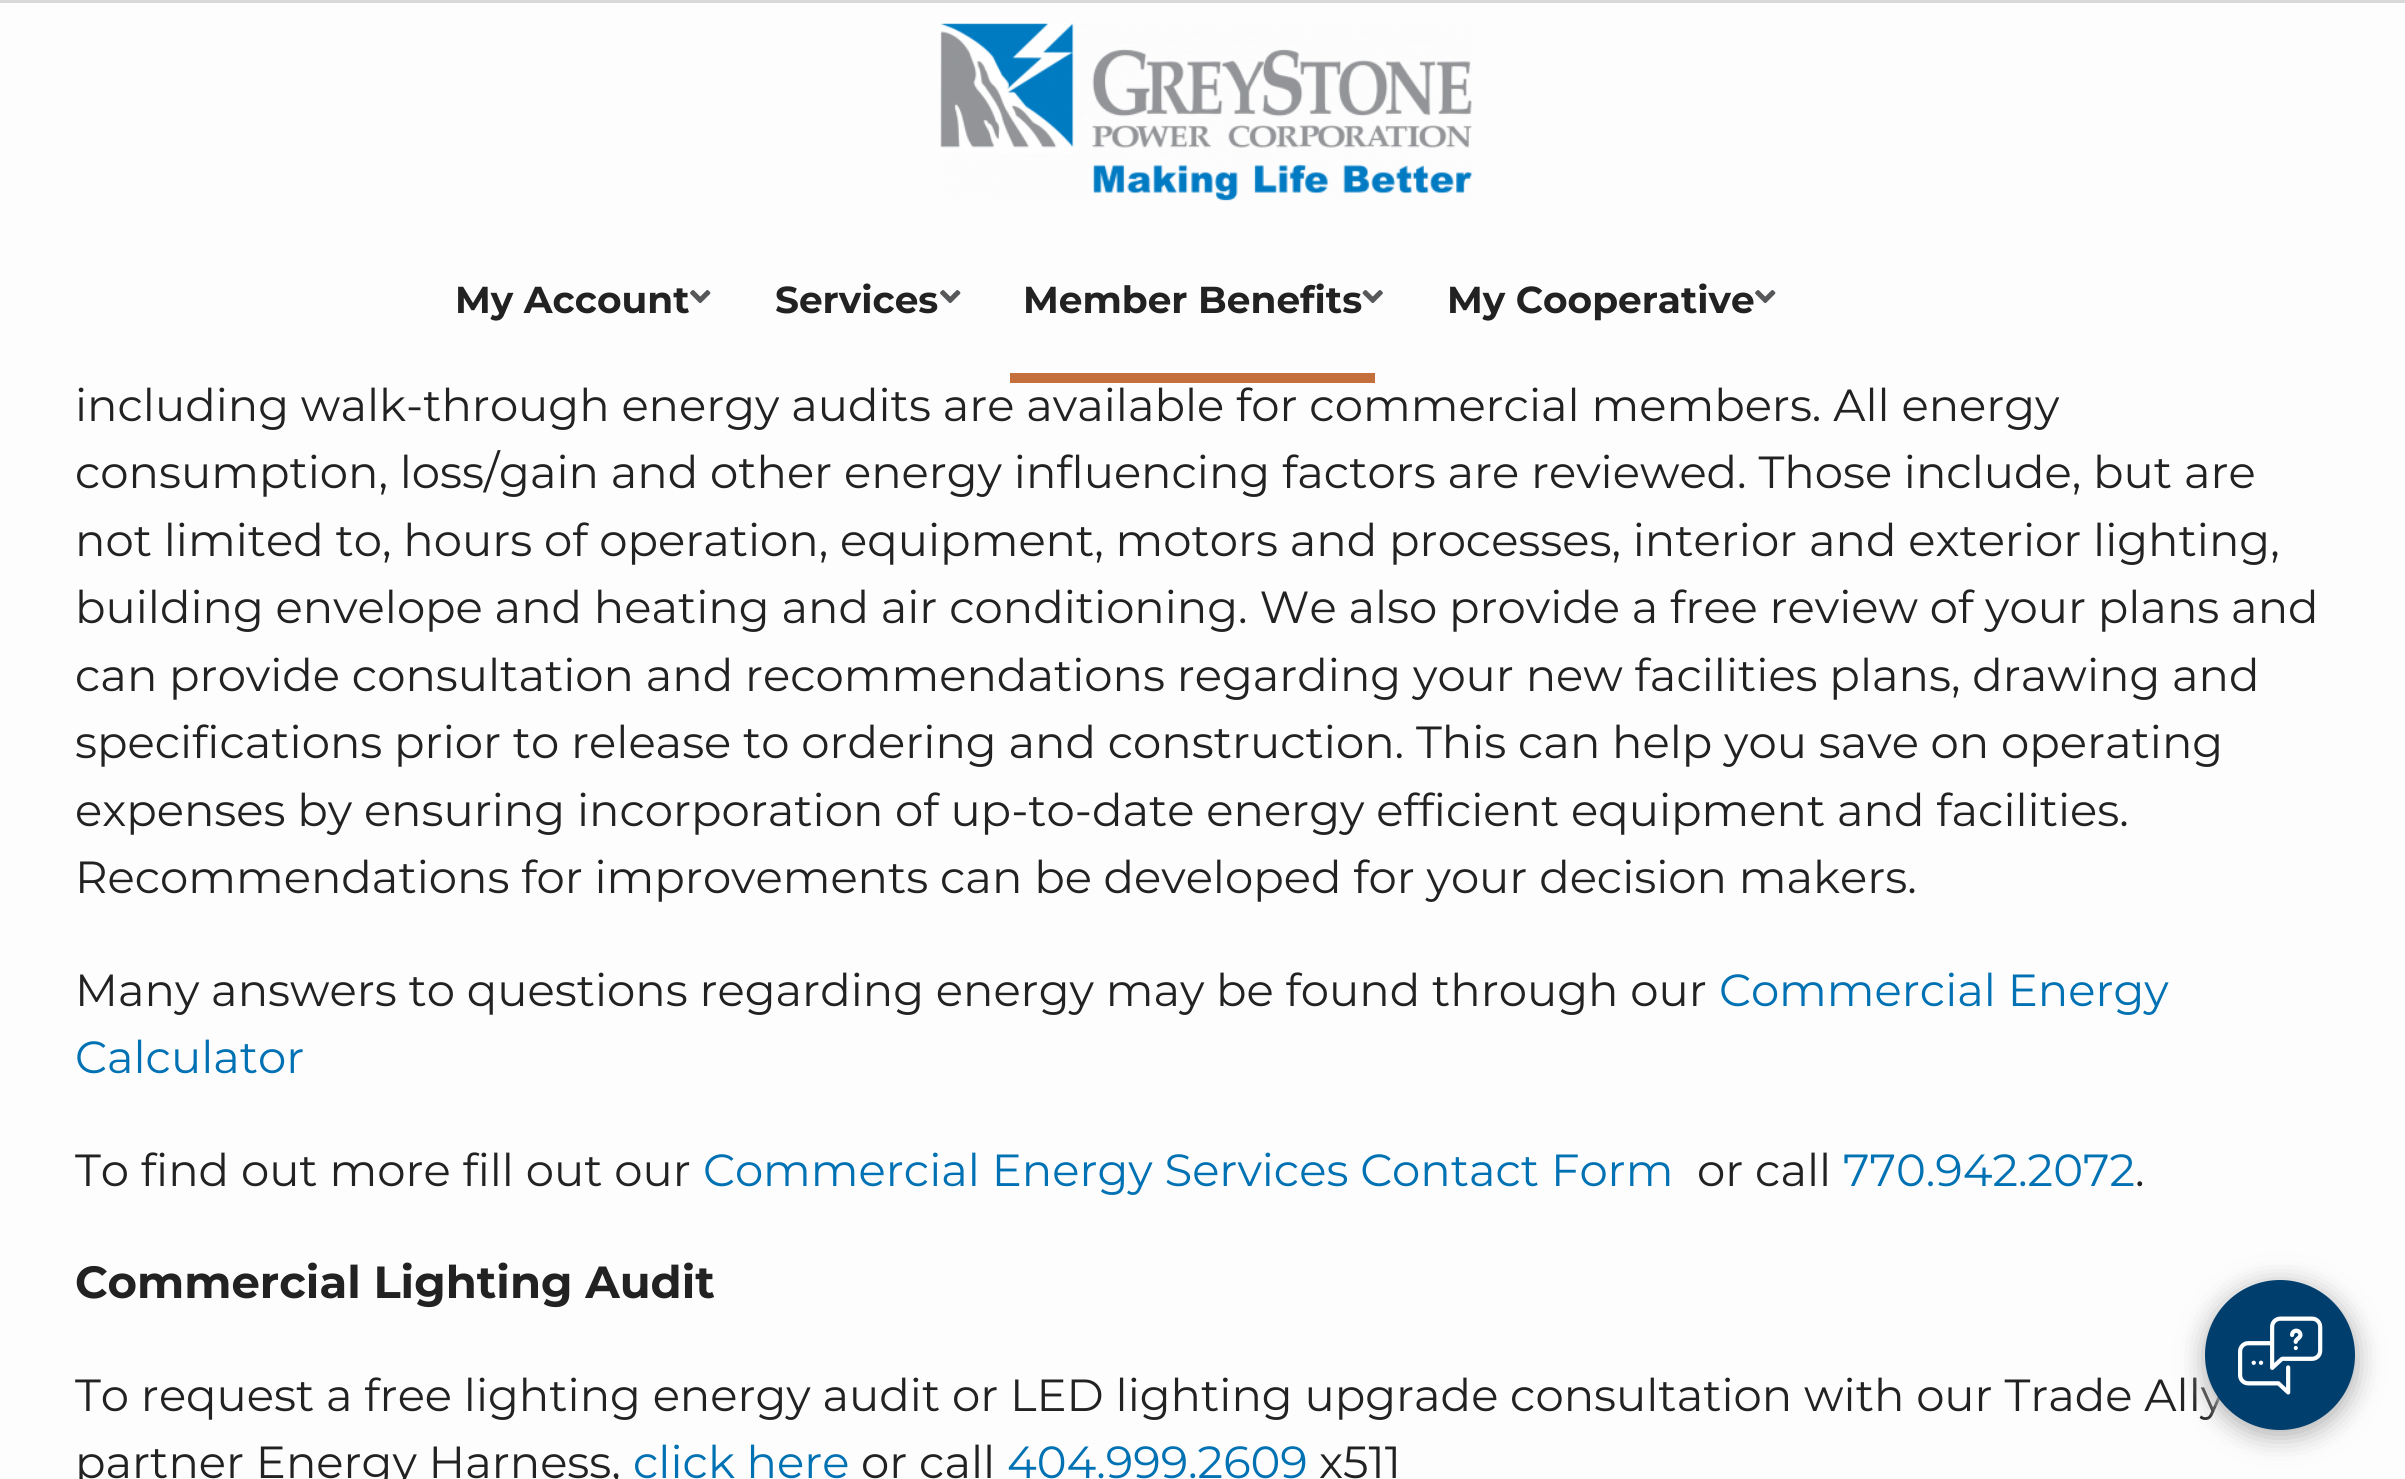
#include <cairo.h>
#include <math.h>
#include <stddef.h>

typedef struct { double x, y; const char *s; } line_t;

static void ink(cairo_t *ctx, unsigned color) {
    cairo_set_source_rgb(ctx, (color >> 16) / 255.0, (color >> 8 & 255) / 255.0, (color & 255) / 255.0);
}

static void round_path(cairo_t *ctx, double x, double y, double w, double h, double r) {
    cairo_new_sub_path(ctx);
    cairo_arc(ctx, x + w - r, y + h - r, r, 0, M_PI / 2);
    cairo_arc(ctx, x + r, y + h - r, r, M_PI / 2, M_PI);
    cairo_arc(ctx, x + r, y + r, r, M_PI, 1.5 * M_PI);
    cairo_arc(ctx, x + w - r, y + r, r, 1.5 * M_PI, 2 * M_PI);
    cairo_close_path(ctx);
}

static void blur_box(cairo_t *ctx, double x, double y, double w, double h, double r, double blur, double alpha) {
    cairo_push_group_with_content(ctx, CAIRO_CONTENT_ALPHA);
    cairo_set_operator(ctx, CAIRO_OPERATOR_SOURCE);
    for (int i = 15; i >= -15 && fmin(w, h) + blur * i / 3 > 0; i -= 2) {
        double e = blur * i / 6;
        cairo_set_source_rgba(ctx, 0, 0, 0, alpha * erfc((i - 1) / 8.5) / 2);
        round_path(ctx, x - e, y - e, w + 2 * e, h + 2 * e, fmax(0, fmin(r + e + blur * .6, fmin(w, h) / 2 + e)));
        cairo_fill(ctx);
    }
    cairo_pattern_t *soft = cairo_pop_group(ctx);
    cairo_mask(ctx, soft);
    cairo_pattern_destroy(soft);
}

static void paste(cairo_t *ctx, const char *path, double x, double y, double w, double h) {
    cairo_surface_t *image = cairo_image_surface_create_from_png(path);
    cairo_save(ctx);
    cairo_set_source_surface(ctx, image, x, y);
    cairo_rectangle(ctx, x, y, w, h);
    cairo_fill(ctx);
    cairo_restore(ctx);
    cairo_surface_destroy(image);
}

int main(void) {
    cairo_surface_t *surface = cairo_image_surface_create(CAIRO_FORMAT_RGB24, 2405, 1479);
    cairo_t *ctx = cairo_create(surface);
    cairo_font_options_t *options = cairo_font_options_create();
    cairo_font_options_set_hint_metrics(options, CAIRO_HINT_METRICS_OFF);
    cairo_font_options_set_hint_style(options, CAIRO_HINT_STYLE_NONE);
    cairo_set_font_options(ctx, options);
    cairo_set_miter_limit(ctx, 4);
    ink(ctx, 0xFDFDFD);
    cairo_paint(ctx);
    ink(ctx, 0xD9D9D9);
    cairo_rectangle(ctx, 0, 0, 2405, 3);
    cairo_fill(ctx);
    paste(ctx, "media/1.png", 940, 23, 533, 178);
    cairo_select_font_face(ctx, "Montserrat", CAIRO_FONT_SLANT_NORMAL, CAIRO_FONT_WEIGHT_BOLD);
    cairo_set_font_size(ctx, 37.5);
    ink(ctx, 0x222222);
    cairo_move_to(ctx, 455, 313);
    cairo_show_text(ctx, "My Account");
    paste(ctx, "media/2.png", 690, 290, 21, 14);
    cairo_move_to(ctx, 775, 313);
    cairo_show_text(ctx, "Services");
    paste(ctx, "media/2.png", 940, 290, 21, 14);
    cairo_move_to(ctx, 1023, 313);
    cairo_show_text(ctx, "Member Benefits");
    paste(ctx, "media/3.png", 1362, 290, 21, 14);
    ink(ctx, 0xC5703C);
    cairo_rectangle(ctx, 1010, 373, 365, 10);
    cairo_fill(ctx);
    ink(ctx, 0x222222);
    cairo_move_to(ctx, 1447, 313);
    cairo_show_text(ctx, "My Cooperative");
    paste(ctx, "media/2.png", 1755, 290, 21, 14);
    cairo_select_font_face(ctx, "Montserrat", CAIRO_FONT_SLANT_NORMAL, CAIRO_FONT_WEIGHT_NORMAL);
    cairo_set_font_size(ctx, 45);
    {
        static const line_t items[] = {
            {75, 421, "including walk-through energy audits are available for commercial members. All energy"},
            {75, 488, "consumption, loss/gain and other energy influencing factors are reviewed. Those include, but are"},
            {75, 556, "not limited to, hours of operation, equipment, motors and processes, interior and exterior lighting,"},
            {75, 623, "building envelope and heating and air conditioning. We also provide a free review of your plans and"},
            {75, 691, "can provide consultation and recommendations regarding your new facilities plans, drawing and"},
            {75, 758, "specifications prior to release to ordering and construction. This can help you save on operating"},
            {75, 826, "expenses by ensuring incorporation of up-to-date energy efficient equipment and facilities."},
            {75, 893, "Recommendations for improvements can be developed for your decision makers."},
            {75, 1006, "Many answers to questions regarding energy may be found through our"},
        };
        for (size_t i = 0; i < sizeof items / sizeof *items; i++) {
            cairo_move_to(ctx, items[i].x, items[i].y);
            cairo_show_text(ctx, items[i].s);
        }
    }
    ink(ctx, 0x0071B3);
    cairo_move_to(ctx, 1719, 1006);
    cairo_show_text(ctx, "Commercial Energy");
    cairo_move_to(ctx, 75, 1073);
    cairo_show_text(ctx, "Calculator");
    ink(ctx, 0x222222);
    cairo_move_to(ctx, 75, 1186);
    cairo_show_text(ctx, "To find out more fill out our");
    ink(ctx, 0x0071B3);
    cairo_move_to(ctx, 703, 1186);
    cairo_show_text(ctx, "Commercial Energy Services Contact Form");
    ink(ctx, 0x222222);
    cairo_move_to(ctx, 1697, 1186);
    cairo_show_text(ctx, "or call");
    ink(ctx, 0x0071B3);
    cairo_move_to(ctx, 1843, 1186);
    cairo_show_text(ctx, "770.942.2072");
    ink(ctx, 0x222222);
    cairo_move_to(ctx, 2135, 1186);
    cairo_show_text(ctx, ".");
    cairo_select_font_face(ctx, "Montserrat", CAIRO_FONT_SLANT_NORMAL, CAIRO_FONT_WEIGHT_BOLD);
    cairo_move_to(ctx, 75, 1298);
    cairo_show_text(ctx, "Commercial Lighting Audit");
    cairo_select_font_face(ctx, "Montserrat", CAIRO_FONT_SLANT_NORMAL, CAIRO_FONT_WEIGHT_NORMAL);
    cairo_move_to(ctx, 75, 1411);
    cairo_show_text(ctx, "To request a free lighting energy audit or LED lighting upgrade consultation with our Trade Ally");
    cairo_move_to(ctx, 75, 1478);
    cairo_show_text(ctx, "partner Energy Harness,");
    ink(ctx, 0x0071B3);
    cairo_move_to(ctx, 633, 1478);
    cairo_show_text(ctx, "click here");
    ink(ctx, 0x222222);
    cairo_move_to(ctx, 861, 1478);
    cairo_show_text(ctx, "or call");
    ink(ctx, 0x0071B3);
    cairo_move_to(ctx, 1007, 1478);
    cairo_show_text(ctx, "404.999.2609");
    ink(ctx, 0x222222);
    cairo_move_to(ctx, 1319, 1478);
    cairo_show_text(ctx, "x511");
    ink(ctx, 0xB5B5B5);
    blur_box(ctx, 2203, 1283, 155, 155, 77.5, 12.5, 1);
    ink(ctx, 0x003E6E);
    cairo_arc(ctx, 2280, 1355, 75, 0, 2 * M_PI);
    cairo_fill(ctx);
    paste(ctx, "media/4.png", 2238, 1316, 85, 79);
    cairo_surface_write_to_png(surface, "image.png");
    cairo_font_options_destroy(options);
    cairo_destroy(ctx);
    cairo_surface_destroy(surface);
    return 0;
}
